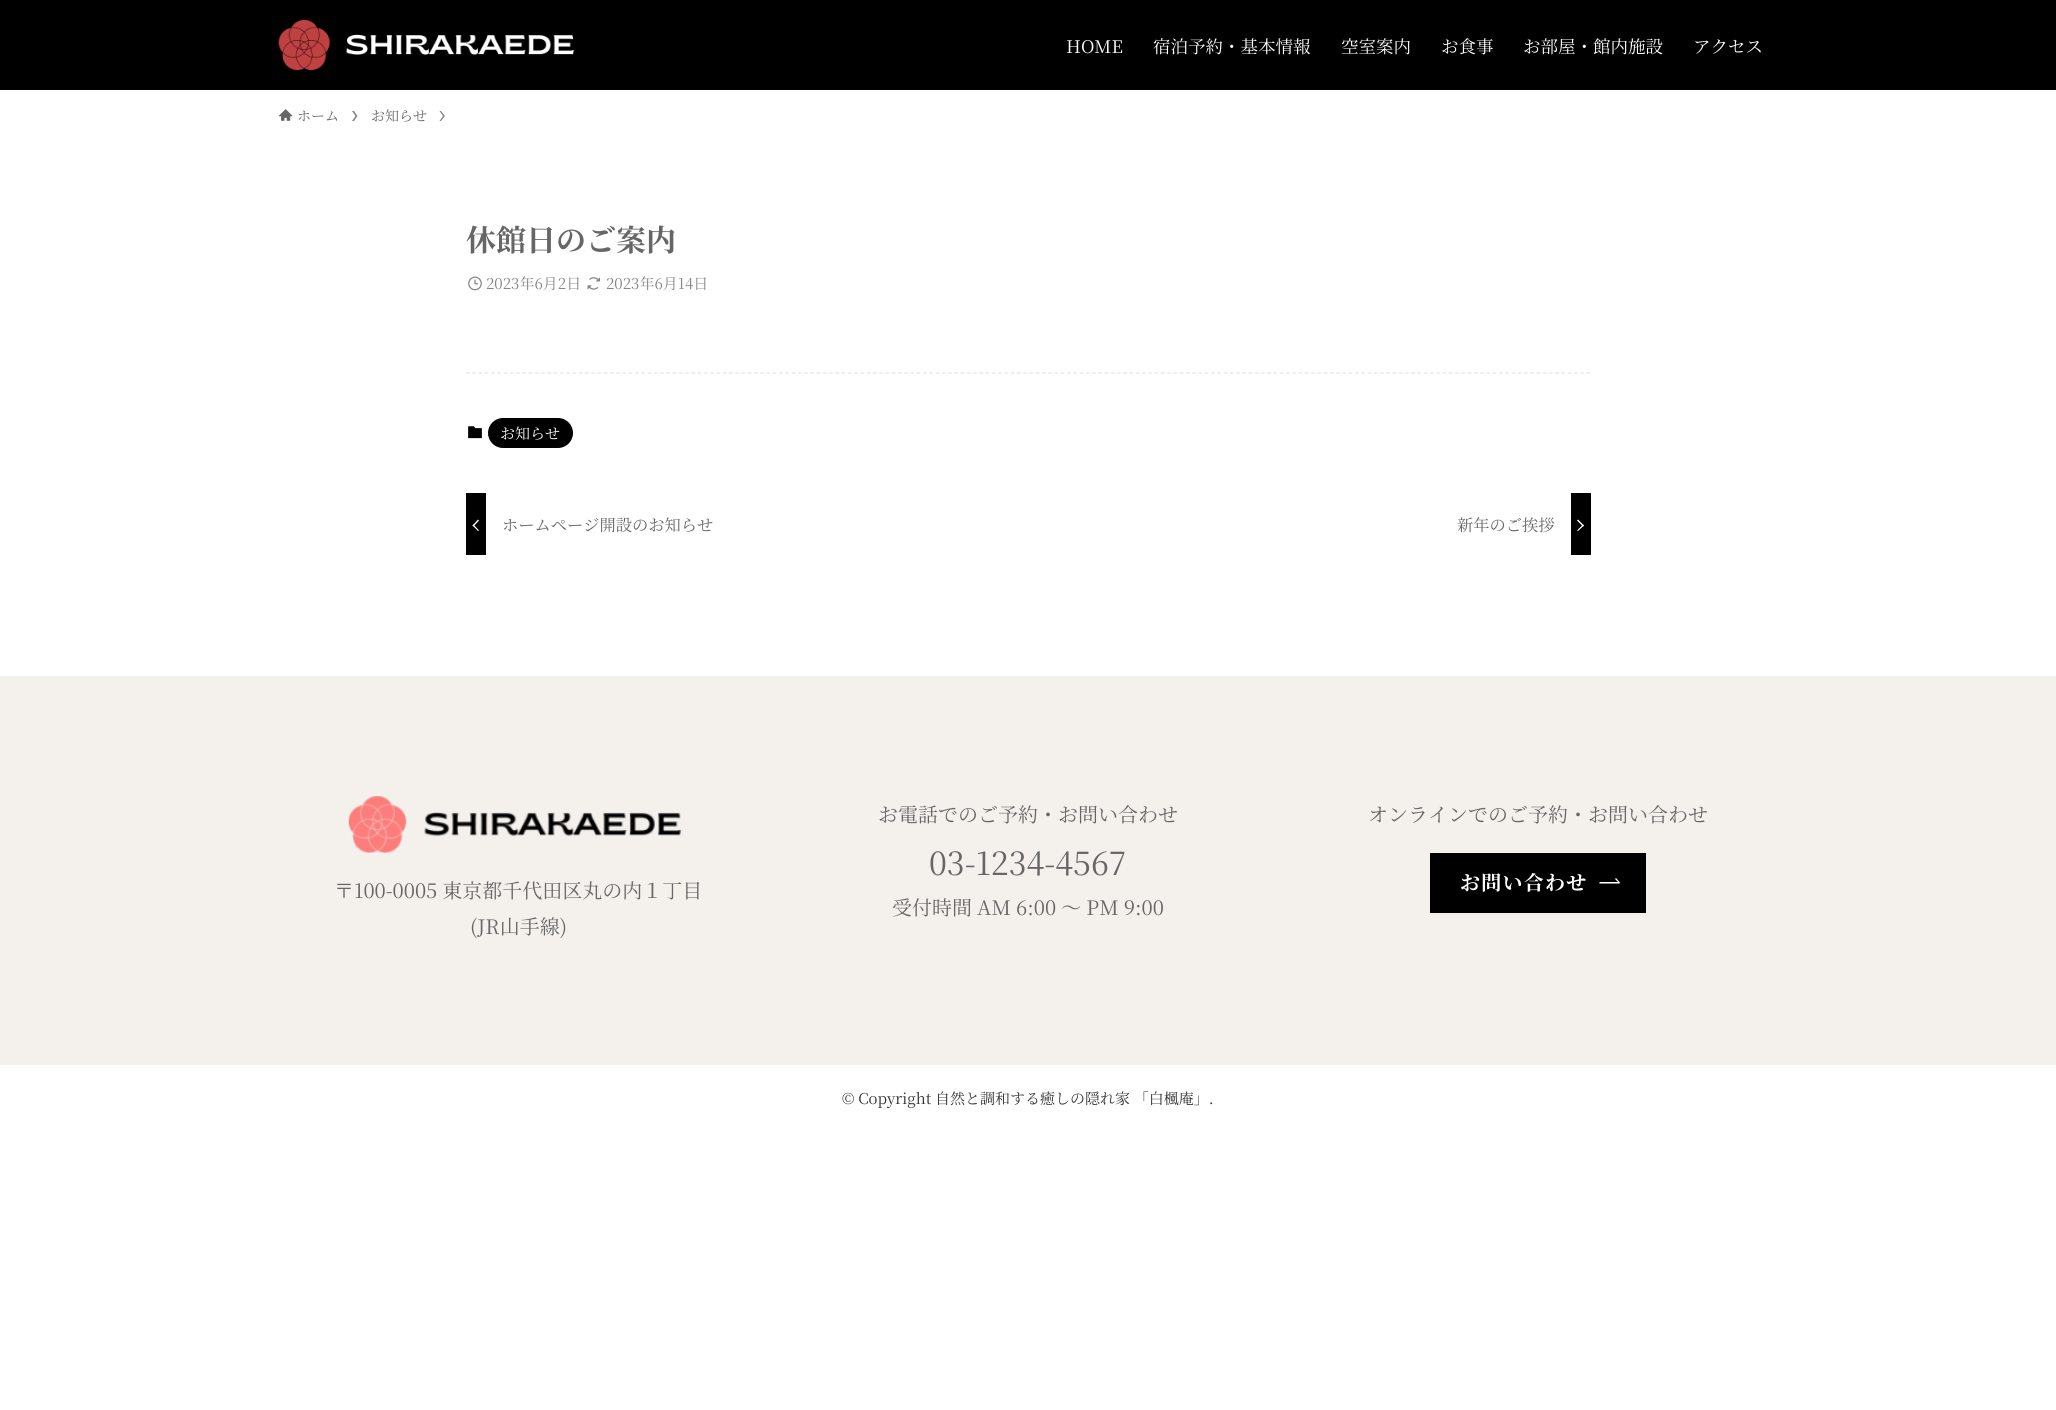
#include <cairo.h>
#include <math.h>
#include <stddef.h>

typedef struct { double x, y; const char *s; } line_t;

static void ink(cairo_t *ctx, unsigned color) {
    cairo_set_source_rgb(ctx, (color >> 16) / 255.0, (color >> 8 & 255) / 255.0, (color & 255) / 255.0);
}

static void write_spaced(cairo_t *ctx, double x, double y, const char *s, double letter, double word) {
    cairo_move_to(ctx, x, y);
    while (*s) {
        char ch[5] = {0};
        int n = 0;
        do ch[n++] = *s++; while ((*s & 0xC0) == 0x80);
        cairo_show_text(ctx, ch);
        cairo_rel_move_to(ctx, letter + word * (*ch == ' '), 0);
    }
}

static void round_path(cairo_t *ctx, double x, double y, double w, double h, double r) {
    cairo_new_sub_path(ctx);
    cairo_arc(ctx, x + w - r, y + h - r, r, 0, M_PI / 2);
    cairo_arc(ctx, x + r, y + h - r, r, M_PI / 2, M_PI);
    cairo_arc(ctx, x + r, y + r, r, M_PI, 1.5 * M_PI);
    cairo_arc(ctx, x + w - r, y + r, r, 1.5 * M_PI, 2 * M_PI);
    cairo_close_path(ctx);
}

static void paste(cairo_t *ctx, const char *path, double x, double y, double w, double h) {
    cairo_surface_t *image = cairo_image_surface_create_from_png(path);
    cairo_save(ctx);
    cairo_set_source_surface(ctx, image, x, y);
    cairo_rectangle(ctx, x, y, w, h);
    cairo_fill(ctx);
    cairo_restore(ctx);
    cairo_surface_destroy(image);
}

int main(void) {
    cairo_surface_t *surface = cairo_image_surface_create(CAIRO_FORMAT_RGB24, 2056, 1410);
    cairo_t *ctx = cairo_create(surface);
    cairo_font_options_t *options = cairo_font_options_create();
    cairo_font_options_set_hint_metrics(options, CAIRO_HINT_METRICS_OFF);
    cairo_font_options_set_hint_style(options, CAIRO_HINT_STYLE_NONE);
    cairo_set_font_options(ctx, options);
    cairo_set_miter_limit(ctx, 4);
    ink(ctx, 0xFFFFFF);
    cairo_paint(ctx);
    ink(ctx, 0x000000);
    cairo_rectangle(ctx, 0, 0, 2056, 90);
    cairo_fill(ctx);
    paste(ctx, "media/1.png", 278, 20, 296, 50);
    cairo_select_font_face(ctx, "Noto Serif JP", CAIRO_FONT_SLANT_NORMAL, CAIRO_FONT_WEIGHT_NORMAL);
    cairo_set_font_size(ctx, 17.5);
    ink(ctx, 0xFFFFFF);
    {
        static const line_t items[] = {
            {1066, 53, "HOME"},
            {1153, 53, "宿泊予約・基本情報"},
            {1341, 53, "空室案内"},
            {1441, 53, "お食事"},
            {1523, 53, "お部屋・館内施設"},
            {1693, 53, "アクセス"},
        };
        for (size_t i = 0; i < sizeof items / sizeof *items; i++) {
            cairo_move_to(ctx, items[i].x, items[i].y);
            cairo_show_text(ctx, items[i].s);
        }
    }
    paste(ctx, "media/2.png", 278, 109, 15, 12);
    cairo_set_font_size(ctx, 14);
    ink(ctx, 0x666666);
    cairo_move_to(ctx, 297, 121);
    cairo_show_text(ctx, "ホーム");
    ink(ctx, 0x858585);
    cairo_new_path(ctx);
    cairo_move_to(ctx, 354, 111);
    cairo_line_to(ctx, 352, 111);
    cairo_line_to(ctx, 355.5, 116);
    cairo_line_to(ctx, 352, 121);
    cairo_line_to(ctx, 354, 121);
    cairo_line_to(ctx, 357.5, 116);
    cairo_close_path(ctx);
    cairo_fill(ctx);
    ink(ctx, 0x666666);
    cairo_move_to(ctx, 371, 121);
    cairo_show_text(ctx, "お知らせ");
    ink(ctx, 0x858585);
    cairo_new_path(ctx);
    cairo_move_to(ctx, 441, 111);
    cairo_line_to(ctx, 439.5, 111);
    cairo_line_to(ctx, 443, 116);
    cairo_line_to(ctx, 439.5, 121);
    cairo_line_to(ctx, 441, 121);
    cairo_line_to(ctx, 445, 116);
    cairo_close_path(ctx);
    cairo_fill(ctx);
    cairo_select_font_face(ctx, "Noto Serif JP", CAIRO_FONT_SLANT_NORMAL, CAIRO_FONT_WEIGHT_BOLD);
    cairo_set_font_size(ctx, 30);
    ink(ctx, 0x666666);
    cairo_move_to(ctx, 466, 251);
    cairo_show_text(ctx, "休館日のご案内");
    paste(ctx, "media/3.png", 468, 276, 14, 15);
    cairo_select_font_face(ctx, "Noto Serif JP", CAIRO_FONT_SLANT_NORMAL, CAIRO_FONT_WEIGHT_NORMAL);
    cairo_set_font_size(ctx, 15);
    ink(ctx, 0x858585);
    cairo_move_to(ctx, 486, 289);
    cairo_show_text(ctx, "2023年6月2日");
    paste(ctx, "media/4.png", 587, 277, 13, 13);
    cairo_move_to(ctx, 606, 289);
    cairo_show_text(ctx, "2023年6月14日");
    cairo_new_path(ctx);
    cairo_move_to(ctx, 466, 373);
    cairo_line_to(ctx, 1591, 373);
    ink(ctx, 0xE3E3E3);
    cairo_set_line_width(ctx, 1.2);
    cairo_set_dash(ctx, (double[]){3.75, 2.51}, 2, 0);
    cairo_stroke(ctx);
    paste(ctx, "media/5.png", 468, 426, 14, 13);
    ink(ctx, 0x000000);
    round_path(ctx, 488, 418, 85, 30, 15);
    cairo_fill(ctx);
    ink(ctx, 0xFFFFFF);
    cairo_move_to(ctx, 500, 439);
    cairo_show_text(ctx, "お知らせ");
    ink(ctx, 0x000000);
    cairo_rectangle(ctx, 466, 493, 20, 62);
    cairo_fill(ctx);
    ink(ctx, 0xFFFFFF);
    cairo_new_path(ctx);
    cairo_move_to(ctx, 473.5, 524.5);
    cairo_line_to(ctx, 479, 530.5);
    cairo_line_to(ctx, 478, 531);
    cairo_line_to(ctx, 472.5, 525.5);
    cairo_close_path(ctx);
    cairo_fill(ctx);
    cairo_new_path(ctx);
    cairo_move_to(ctx, 478, 519.5);
    cairo_line_to(ctx, 479, 520.5);
    cairo_line_to(ctx, 473.5, 526.5);
    cairo_line_to(ctx, 472.5, 525.5);
    cairo_close_path(ctx);
    cairo_fill(ctx);
    cairo_set_font_size(ctx, 16.25);
    ink(ctx, 0x666666);
    cairo_move_to(ctx, 502, 531);
    cairo_show_text(ctx, "ホームページ開設のお知らせ");
    ink(ctx, 0x000000);
    cairo_rectangle(ctx, 1571, 493, 20, 62);
    cairo_fill(ctx);
    ink(ctx, 0x666666);
    cairo_move_to(ctx, 1457, 531);
    cairo_show_text(ctx, "新年のご挨拶");
    ink(ctx, 0xFFFFFF);
    cairo_new_path(ctx);
    cairo_move_to(ctx, 1577, 520.5);
    cairo_line_to(ctx, 1578, 519.5);
    cairo_line_to(ctx, 1584, 525.5);
    cairo_line_to(ctx, 1583, 526.5);
    cairo_close_path(ctx);
    cairo_fill(ctx);
    cairo_new_path(ctx);
    cairo_move_to(ctx, 1577, 530.5);
    cairo_line_to(ctx, 1583, 524.5);
    cairo_line_to(ctx, 1584, 525.5);
    cairo_line_to(ctx, 1578, 531);
    cairo_close_path(ctx);
    cairo_fill(ctx);
    ink(ctx, 0xF4F1ED);
    cairo_rectangle(ctx, 0, 676, 2056, 389);
    cairo_fill(ctx);
    cairo_set_font_size(ctx, 20);
    ink(ctx, 0x666666);
    cairo_move_to(ctx, 878, 822);
    cairo_show_text(ctx, "お電話でのご予約・お問い合わせ");
    cairo_set_font_size(ctx, 32);
    cairo_move_to(ctx, 929, 875);
    cairo_show_text(ctx, "03-1234-4567");
    cairo_set_font_size(ctx, 20);
    cairo_move_to(ctx, 892, 915);
    cairo_show_text(ctx, "受付時間 AM 6:00 〜 PM 9:00");
    cairo_move_to(ctx, 1368, 822);
    cairo_show_text(ctx, "オンラインでのご予約・お問い合わせ");
    ink(ctx, 0x000000);
    cairo_rectangle(ctx, 1430, 853, 216, 60);
    cairo_fill(ctx);
    cairo_select_font_face(ctx, "Noto Serif JP", CAIRO_FONT_SLANT_NORMAL, CAIRO_FONT_WEIGHT_BOLD);
    ink(ctx, 0xFFFFFF);
    write_spaced(ctx, 1460, 890, "お問い合わせ", 1.25, 0);
    cairo_new_path(ctx);
    cairo_move_to(ctx, 1619.5, 883.5);
    cairo_line_to(ctx, 1599.5, 883.5);
    cairo_line_to(ctx, 1599.5, 882);
    cairo_line_to(ctx, 1618, 882);
    cairo_line_to(ctx, 1615, 879);
    cairo_line_to(ctx, 1616, 878);
    cairo_line_to(ctx, 1620, 882.5);
    cairo_close_path(ctx);
    cairo_fill(ctx);
    paste(ctx, "media/6.png", 348, 796, 334, 57);
    cairo_select_font_face(ctx, "Noto Serif JP", CAIRO_FONT_SLANT_NORMAL, CAIRO_FONT_WEIGHT_NORMAL);
    ink(ctx, 0x666666);
    cairo_move_to(ctx, 334, 898);
    cairo_show_text(ctx, "〒100-0005 東京都千代田区丸の内１丁目");
    cairo_move_to(ctx, 470, 934);
    cairo_show_text(ctx, "(JR山手線)");
    cairo_set_font_size(ctx, 15);
    ink(ctx, 0x333333);
    cairo_move_to(ctx, 842, 1104);
    cairo_show_text(ctx, "© Copyright 自然と調和する癒しの隠れ家 「白楓庵」.");
    cairo_surface_write_to_png(surface, "image.png");
    cairo_font_options_destroy(options);
    cairo_destroy(ctx);
    cairo_surface_destroy(surface);
    return 0;
}
